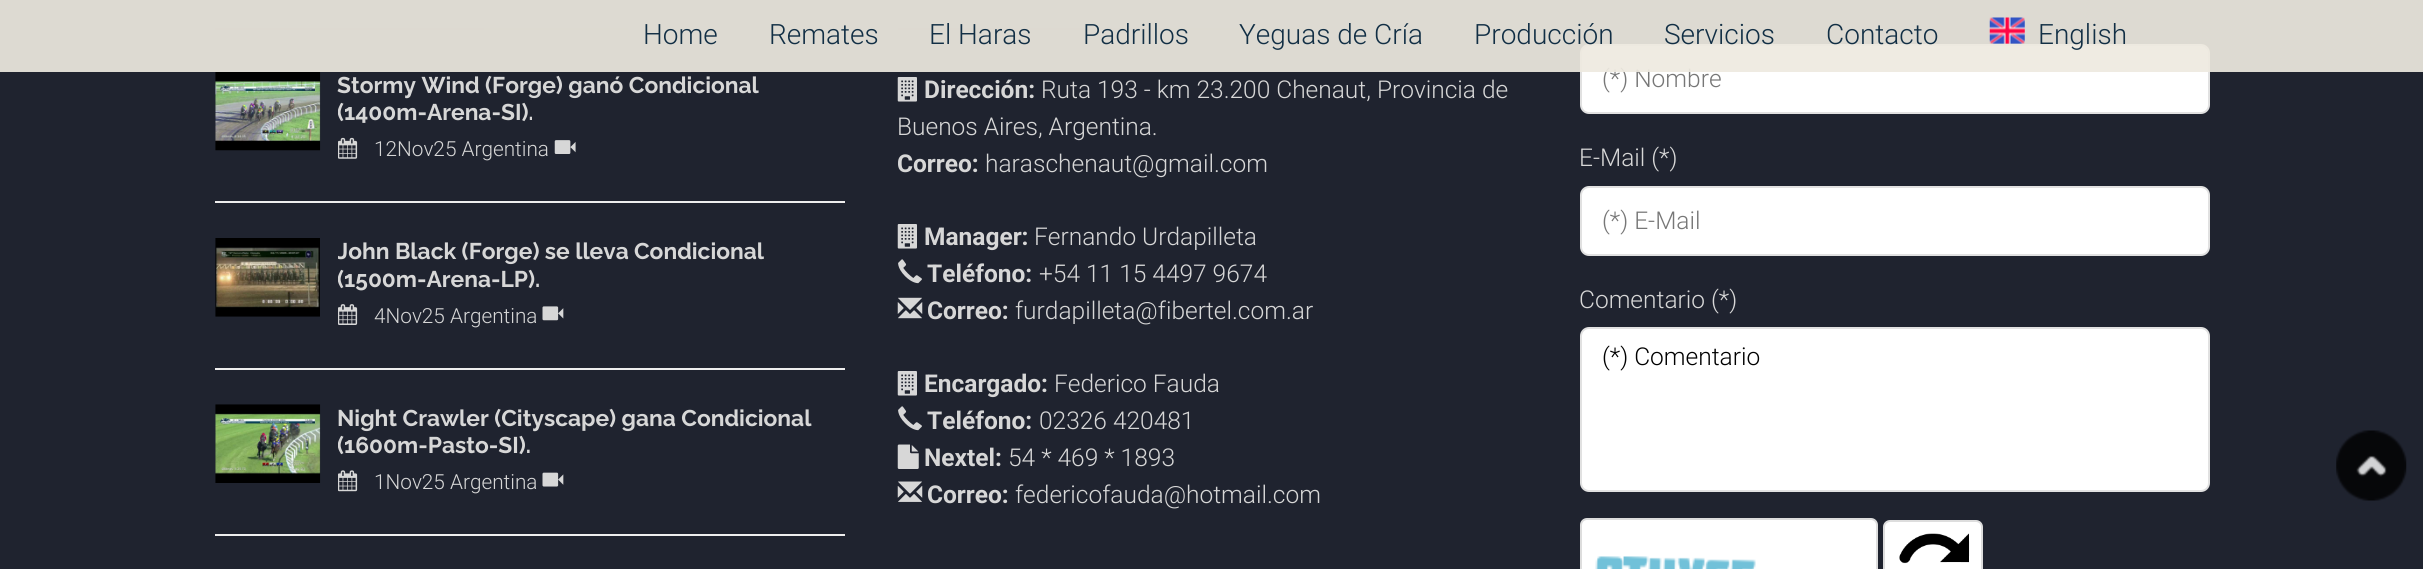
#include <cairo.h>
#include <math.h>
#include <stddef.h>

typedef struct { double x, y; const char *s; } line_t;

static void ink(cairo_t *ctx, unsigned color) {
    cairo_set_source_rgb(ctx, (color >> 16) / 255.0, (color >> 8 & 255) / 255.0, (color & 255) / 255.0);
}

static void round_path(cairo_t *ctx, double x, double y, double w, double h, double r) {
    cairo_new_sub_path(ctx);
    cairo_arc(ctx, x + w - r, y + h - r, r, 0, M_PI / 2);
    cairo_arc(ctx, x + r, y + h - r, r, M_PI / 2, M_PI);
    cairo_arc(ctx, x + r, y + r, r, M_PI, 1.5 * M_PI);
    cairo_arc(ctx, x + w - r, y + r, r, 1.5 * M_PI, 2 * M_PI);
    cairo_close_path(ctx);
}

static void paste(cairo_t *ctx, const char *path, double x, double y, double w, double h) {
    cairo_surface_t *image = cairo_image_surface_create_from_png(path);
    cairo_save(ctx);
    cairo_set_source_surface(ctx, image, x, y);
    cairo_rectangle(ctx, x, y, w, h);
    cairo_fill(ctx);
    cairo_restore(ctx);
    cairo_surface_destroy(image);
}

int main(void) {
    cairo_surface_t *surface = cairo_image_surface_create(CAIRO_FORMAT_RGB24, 2423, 569);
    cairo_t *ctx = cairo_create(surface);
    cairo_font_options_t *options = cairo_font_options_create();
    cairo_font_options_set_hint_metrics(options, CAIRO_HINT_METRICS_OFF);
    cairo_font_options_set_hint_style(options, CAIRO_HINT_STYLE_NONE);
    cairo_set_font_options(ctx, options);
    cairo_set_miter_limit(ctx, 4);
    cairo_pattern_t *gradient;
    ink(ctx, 0x1F232F);
    cairo_paint(ctx);
    gradient = cairo_pattern_create_linear(215, 29, 845, 29);
    cairo_pattern_add_color_stop_rgba(gradient, 0, 0.098, 0.114, 0.153, 1);
    cairo_pattern_add_color_stop_rgba(gradient, 0.35, 0.106, 0.122, 0.161, 1);
    cairo_pattern_add_color_stop_rgba(gradient, 0.7, 0.114, 0.129, 0.176, 1);
    cairo_pattern_add_color_stop_rgba(gradient, 1, 0.122, 0.137, 0.184, 1);
    cairo_set_source(ctx, gradient);
    cairo_pattern_destroy(gradient);
    cairo_rectangle(ctx, 215, 28, 413, 2);
    cairo_fill(ctx);
    gradient = cairo_pattern_create_linear(898, 29, 1528, 29);
    cairo_pattern_add_color_stop_rgba(gradient, 0, 0.098, 0.114, 0.153, 1);
    cairo_pattern_add_color_stop_rgba(gradient, 0.35, 0.106, 0.122, 0.161, 1);
    cairo_pattern_add_color_stop_rgba(gradient, 0.7, 0.114, 0.129, 0.176, 1);
    cairo_pattern_add_color_stop_rgba(gradient, 1, 0.122, 0.137, 0.184, 1);
    cairo_set_source(ctx, gradient);
    cairo_pattern_destroy(gradient);
    cairo_rectangle(ctx, 898, 28, 413, 2);
    cairo_fill(ctx);
    ink(ctx, 0xFFFFFF);
    round_path(ctx, 1581, 45, 628, 68, 8);
    cairo_fill_preserve(ctx);
    ink(ctx, 0xE1E1E1);
    cairo_stroke(ctx);
    cairo_select_font_face(ctx, "Roboto Light", CAIRO_FONT_SLANT_NORMAL, CAIRO_FONT_WEIGHT_NORMAL);
    cairo_set_font_size(ctx, 24.5);
    ink(ctx, 0x777777);
    cairo_move_to(ctx, 1602, 87);
    cairo_show_text(ctx, "(*) Nombre");
    cairo_set_source_rgba(ctx, 0.933, 0.914, 0.878, 0.92);
    cairo_rectangle(ctx, 0, 0, 2423, 72);
    cairo_fill(ctx);
    cairo_set_font_size(ctx, 28);
    ink(ctx, 0x122F45);
    {
        static const line_t items[] = {
            {643, 44, "Home"},
            {769, 44, "Remates"},
            {929, 44, "El Haras"},
            {1083, 44, "Padrillos"},
            {1239, 44, "Yeguas de Cría"},
            {1474, 44, "Producción"},
            {1664, 44, "Servicios"},
            {1826, 44, "Contacto"},
        };
        for (size_t i = 0; i < sizeof items / sizeof *items; i++) {
            cairo_move_to(ctx, items[i].x, items[i].y);
            cairo_show_text(ctx, items[i].s);
        }
    }
    paste(ctx, "media/1.png", 1989, 17, 36, 27);
    cairo_move_to(ctx, 2038, 44);
    cairo_show_text(ctx, "English");
    paste(ctx, "media/2.png", 215, 72, 106, 79);
    cairo_select_font_face(ctx, "Raleway", CAIRO_FONT_SLANT_NORMAL, CAIRO_FONT_WEIGHT_BOLD);
    cairo_set_font_size(ctx, 22.75);
    ink(ctx, 0xD7D7D7);
    cairo_move_to(ctx, 337, 93);
    cairo_show_text(ctx, "Stormy Wind (Forge) ganó Condicional");
    cairo_save(ctx);
    cairo_rectangle(ctx, 338, 72, 507, 94);
    cairo_clip(ctx);
    cairo_move_to(ctx, 337, 120);
    cairo_show_text(ctx, "(1400m-Arena-SI).");
    cairo_restore(ctx);
    paste(ctx, "media/3.png", 338, 137, 20, 22);
    cairo_select_font_face(ctx, "Roboto Light", CAIRO_FONT_SLANT_NORMAL, CAIRO_FONT_WEIGHT_NORMAL);
    cairo_set_font_size(ctx, 20.75);
    cairo_move_to(ctx, 374, 156);
    cairo_show_text(ctx, "12Nov25 Argentina");
    paste(ctx, "media/4.png", 554, 140, 22, 14);
    ink(ctx, 0xEEEEEE);
    cairo_rectangle(ctx, 215, 201, 630, 2);
    cairo_fill(ctx);
    paste(ctx, "media/5.png", 215, 238, 105, 79);
    cairo_save(ctx);
    cairo_rectangle(ctx, 338, 238, 507, 95);
    cairo_clip(ctx);
    cairo_select_font_face(ctx, "Raleway", CAIRO_FONT_SLANT_NORMAL, CAIRO_FONT_WEIGHT_BOLD);
    cairo_set_font_size(ctx, 22.75);
    ink(ctx, 0xD7D7D7);
    cairo_move_to(ctx, 337, 259);
    cairo_show_text(ctx, "John Black (Forge) se lleva");
    cairo_restore(ctx);
    cairo_select_font_face(ctx, "Raleway", CAIRO_FONT_SLANT_NORMAL, CAIRO_FONT_WEIGHT_BOLD);
    cairo_set_font_size(ctx, 22.75);
    ink(ctx, 0xD7D7D7);
    cairo_move_to(ctx, 634, 259);
    cairo_show_text(ctx, "Condicional");
    cairo_save(ctx);
    cairo_rectangle(ctx, 338, 238, 507, 95);
    cairo_clip(ctx);
    cairo_move_to(ctx, 337, 287);
    cairo_show_text(ctx, "(1500m-Arena-LP).");
    cairo_restore(ctx);
    paste(ctx, "media/6.png", 338, 304, 20, 21);
    cairo_select_font_face(ctx, "Roboto Light", CAIRO_FONT_SLANT_NORMAL, CAIRO_FONT_WEIGHT_NORMAL);
    cairo_set_font_size(ctx, 20.75);
    cairo_move_to(ctx, 374, 323);
    cairo_show_text(ctx, "4Nov25 Argentina");
    paste(ctx, "media/7.png", 542, 306, 22, 15);
    ink(ctx, 0xEEEEEE);
    cairo_rectangle(ctx, 215, 368, 630, 2);
    cairo_fill(ctx);
    paste(ctx, "media/8.png", 215, 404, 106, 79);
    cairo_select_font_face(ctx, "Raleway", CAIRO_FONT_SLANT_NORMAL, CAIRO_FONT_WEIGHT_BOLD);
    cairo_set_font_size(ctx, 22.75);
    ink(ctx, 0xD7D7D7);
    cairo_move_to(ctx, 337, 426);
    cairo_show_text(ctx, "Night Crawler (Cityscape) gana Condicional");
    cairo_save(ctx);
    cairo_rectangle(ctx, 338, 404, 507, 95);
    cairo_clip(ctx);
    cairo_move_to(ctx, 337, 453);
    cairo_show_text(ctx, "(1600m-Pasto-SI).");
    cairo_restore(ctx);
    paste(ctx, "media/9.png", 338, 470, 20, 22);
    cairo_select_font_face(ctx, "Roboto Light", CAIRO_FONT_SLANT_NORMAL, CAIRO_FONT_WEIGHT_NORMAL);
    cairo_set_font_size(ctx, 20.75);
    cairo_move_to(ctx, 374, 489);
    cairo_show_text(ctx, "1Nov25 Argentina");
    paste(ctx, "media/10.png", 542, 472, 22, 15);
    ink(ctx, 0xEEEEEE);
    cairo_rectangle(ctx, 215, 534, 630, 2);
    cairo_fill(ctx);
    paste(ctx, "media/11.png", 897, 77, 20, 25);
    cairo_select_font_face(ctx, "Roboto", CAIRO_FONT_SLANT_NORMAL, CAIRO_FONT_WEIGHT_BOLD);
    cairo_set_font_size(ctx, 24.5);
    ink(ctx, 0xD7D7D7);
    cairo_move_to(ctx, 924, 98);
    cairo_show_text(ctx, "Dirección:");
    cairo_select_font_face(ctx, "Roboto Light", CAIRO_FONT_SLANT_NORMAL, CAIRO_FONT_WEIGHT_NORMAL);
    cairo_move_to(ctx, 1041, 98);
    cairo_show_text(ctx, "Ruta 193 - km 23.200 Chenaut, Provincia de");
    cairo_move_to(ctx, 897, 135);
    cairo_show_text(ctx, "Buenos Aires, Argentina.");
    cairo_select_font_face(ctx, "Roboto", CAIRO_FONT_SLANT_NORMAL, CAIRO_FONT_WEIGHT_BOLD);
    cairo_move_to(ctx, 897, 172);
    cairo_show_text(ctx, "Correo:");
    cairo_select_font_face(ctx, "Roboto Light", CAIRO_FONT_SLANT_NORMAL, CAIRO_FONT_WEIGHT_NORMAL);
    cairo_move_to(ctx, 985, 172);
    cairo_show_text(ctx, "haraschenaut@gmail.com");
    paste(ctx, "media/11.png", 897, 224, 20, 25);
    cairo_select_font_face(ctx, "Roboto", CAIRO_FONT_SLANT_NORMAL, CAIRO_FONT_WEIGHT_BOLD);
    cairo_move_to(ctx, 924, 245);
    cairo_show_text(ctx, "Manager:");
    cairo_select_font_face(ctx, "Roboto Light", CAIRO_FONT_SLANT_NORMAL, CAIRO_FONT_WEIGHT_NORMAL);
    cairo_move_to(ctx, 1034, 245);
    cairo_show_text(ctx, "Fernando Urdapilleta");
    paste(ctx, "media/12.png", 898, 259, 24, 25);
    cairo_select_font_face(ctx, "Roboto", CAIRO_FONT_SLANT_NORMAL, CAIRO_FONT_WEIGHT_BOLD);
    cairo_move_to(ctx, 927, 282);
    cairo_show_text(ctx, "Teléfono:");
    cairo_select_font_face(ctx, "Roboto Light", CAIRO_FONT_SLANT_NORMAL, CAIRO_FONT_WEIGHT_NORMAL);
    cairo_move_to(ctx, 1039, 282);
    cairo_show_text(ctx, "+54 11 15 4497 9674");
    paste(ctx, "media/13.png", 897, 297, 26, 22);
    cairo_select_font_face(ctx, "Roboto", CAIRO_FONT_SLANT_NORMAL, CAIRO_FONT_WEIGHT_BOLD);
    cairo_move_to(ctx, 927, 319);
    cairo_show_text(ctx, "Correo:");
    cairo_select_font_face(ctx, "Roboto Light", CAIRO_FONT_SLANT_NORMAL, CAIRO_FONT_WEIGHT_NORMAL);
    cairo_move_to(ctx, 1015, 319);
    cairo_show_text(ctx, "furdapilleta@fibertel.com.ar");
    paste(ctx, "media/11.png", 897, 371, 20, 25);
    cairo_select_font_face(ctx, "Roboto", CAIRO_FONT_SLANT_NORMAL, CAIRO_FONT_WEIGHT_BOLD);
    cairo_move_to(ctx, 924, 392);
    cairo_show_text(ctx, "Encargado:");
    cairo_select_font_face(ctx, "Roboto Light", CAIRO_FONT_SLANT_NORMAL, CAIRO_FONT_WEIGHT_NORMAL);
    cairo_move_to(ctx, 1054, 392);
    cairo_show_text(ctx, "Federico Fauda");
    paste(ctx, "media/12.png", 898, 406, 24, 25);
    cairo_select_font_face(ctx, "Roboto", CAIRO_FONT_SLANT_NORMAL, CAIRO_FONT_WEIGHT_BOLD);
    cairo_move_to(ctx, 927, 429);
    cairo_show_text(ctx, "Teléfono:");
    cairo_select_font_face(ctx, "Roboto Light", CAIRO_FONT_SLANT_NORMAL, CAIRO_FONT_WEIGHT_NORMAL);
    cairo_move_to(ctx, 1039, 429);
    cairo_show_text(ctx, "02326 420481");
    paste(ctx, "media/14.png", 897, 444, 22, 25);
    cairo_select_font_face(ctx, "Roboto", CAIRO_FONT_SLANT_NORMAL, CAIRO_FONT_WEIGHT_BOLD);
    cairo_move_to(ctx, 924, 466);
    cairo_show_text(ctx, "Nextel:");
    cairo_select_font_face(ctx, "Roboto Light", CAIRO_FONT_SLANT_NORMAL, CAIRO_FONT_WEIGHT_NORMAL);
    cairo_move_to(ctx, 1008, 466);
    cairo_show_text(ctx, "54 * 469 * 1893");
    paste(ctx, "media/15.png", 897, 481, 26, 21);
    cairo_select_font_face(ctx, "Roboto", CAIRO_FONT_SLANT_NORMAL, CAIRO_FONT_WEIGHT_BOLD);
    cairo_move_to(ctx, 927, 503);
    cairo_show_text(ctx, "Correo:");
    cairo_select_font_face(ctx, "Roboto Light", CAIRO_FONT_SLANT_NORMAL, CAIRO_FONT_WEIGHT_NORMAL);
    cairo_move_to(ctx, 1015, 503);
    cairo_show_text(ctx, "federicofauda@hotmail.com");
    cairo_move_to(ctx, 1579, 166);
    cairo_show_text(ctx, "E-Mail (*)");
    ink(ctx, 0xFFFFFF);
    round_path(ctx, 1581, 187, 628, 68, 8);
    cairo_fill_preserve(ctx);
    ink(ctx, 0xE1E1E1);
    cairo_stroke(ctx);
    ink(ctx, 0x777777);
    cairo_move_to(ctx, 1602, 229);
    cairo_show_text(ctx, "(*) E-Mail");
    ink(ctx, 0xD7D7D7);
    cairo_move_to(ctx, 1579, 308);
    cairo_show_text(ctx, "Comentario (*)");
    ink(ctx, 0xFFFFFF);
    round_path(ctx, 1581, 328, 628, 163, 8);
    cairo_fill_preserve(ctx);
    ink(ctx, 0xE1E1E1);
    cairo_stroke(ctx);
    ink(ctx, 0x000000);
    cairo_move_to(ctx, 1602, 365);
    cairo_show_text(ctx, "(*) Comentario");
    ink(ctx, 0xFFFFFF);
    round_path(ctx, 1581, 519, 296, 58, 6);
    cairo_fill_preserve(ctx);
    ink(ctx, 0xDDDDDD);
    cairo_stroke(ctx);
    paste(ctx, "media/16.png", 1595, 556, 161, 13);
    ink(ctx, 0xFFFFFF);
    round_path(ctx, 1884, 521, 98, 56, 6);
    cairo_fill_preserve(ctx);
    ink(ctx, 0xDDDDDD);
    cairo_stroke(ctx);
    paste(ctx, "media/17.png", 1899, 533, 71, 31);
    paste(ctx, "media/18.png", 2336, 430, 71, 71);
    cairo_surface_write_to_png(surface, "image.png");
    cairo_font_options_destroy(options);
    cairo_destroy(ctx);
    cairo_surface_destroy(surface);
    return 0;
}
